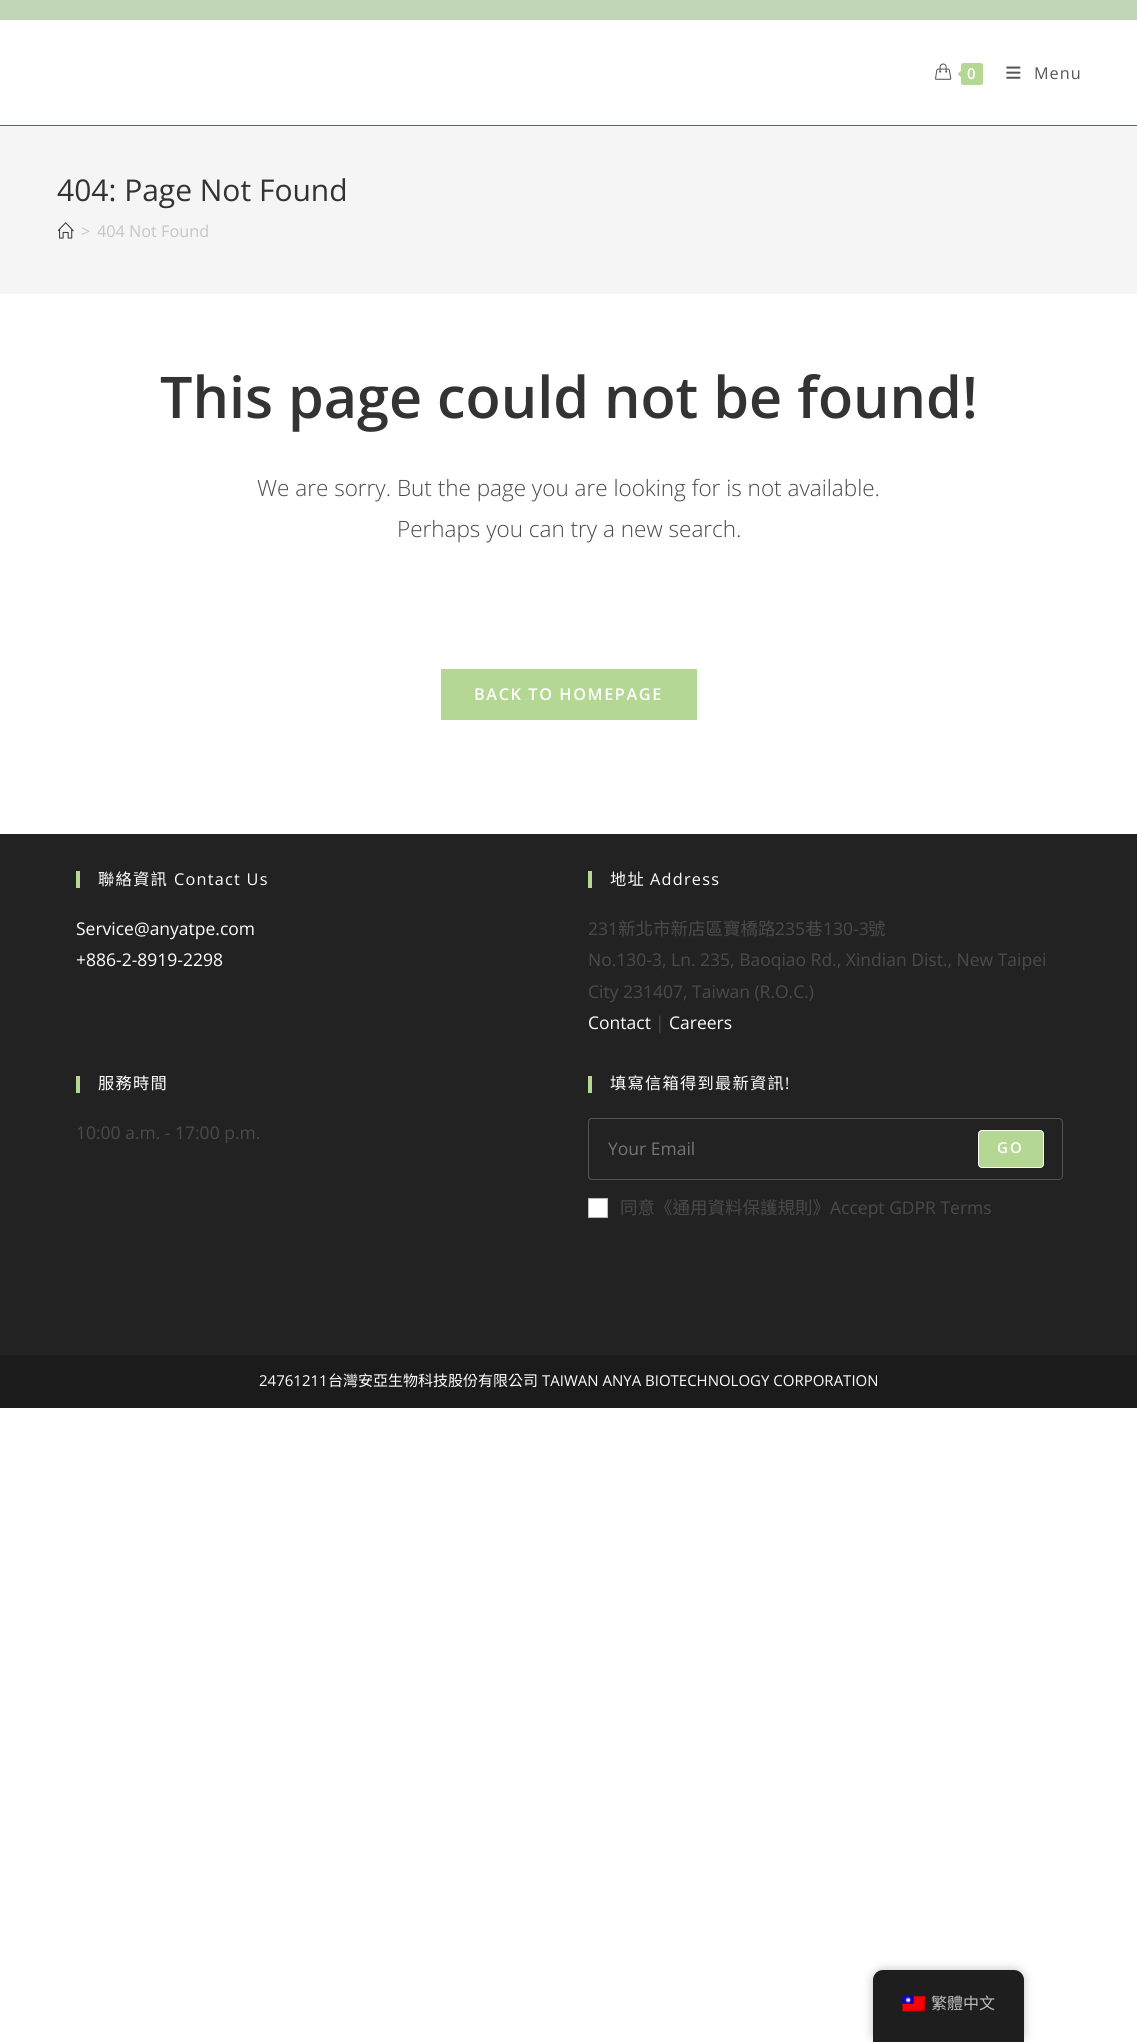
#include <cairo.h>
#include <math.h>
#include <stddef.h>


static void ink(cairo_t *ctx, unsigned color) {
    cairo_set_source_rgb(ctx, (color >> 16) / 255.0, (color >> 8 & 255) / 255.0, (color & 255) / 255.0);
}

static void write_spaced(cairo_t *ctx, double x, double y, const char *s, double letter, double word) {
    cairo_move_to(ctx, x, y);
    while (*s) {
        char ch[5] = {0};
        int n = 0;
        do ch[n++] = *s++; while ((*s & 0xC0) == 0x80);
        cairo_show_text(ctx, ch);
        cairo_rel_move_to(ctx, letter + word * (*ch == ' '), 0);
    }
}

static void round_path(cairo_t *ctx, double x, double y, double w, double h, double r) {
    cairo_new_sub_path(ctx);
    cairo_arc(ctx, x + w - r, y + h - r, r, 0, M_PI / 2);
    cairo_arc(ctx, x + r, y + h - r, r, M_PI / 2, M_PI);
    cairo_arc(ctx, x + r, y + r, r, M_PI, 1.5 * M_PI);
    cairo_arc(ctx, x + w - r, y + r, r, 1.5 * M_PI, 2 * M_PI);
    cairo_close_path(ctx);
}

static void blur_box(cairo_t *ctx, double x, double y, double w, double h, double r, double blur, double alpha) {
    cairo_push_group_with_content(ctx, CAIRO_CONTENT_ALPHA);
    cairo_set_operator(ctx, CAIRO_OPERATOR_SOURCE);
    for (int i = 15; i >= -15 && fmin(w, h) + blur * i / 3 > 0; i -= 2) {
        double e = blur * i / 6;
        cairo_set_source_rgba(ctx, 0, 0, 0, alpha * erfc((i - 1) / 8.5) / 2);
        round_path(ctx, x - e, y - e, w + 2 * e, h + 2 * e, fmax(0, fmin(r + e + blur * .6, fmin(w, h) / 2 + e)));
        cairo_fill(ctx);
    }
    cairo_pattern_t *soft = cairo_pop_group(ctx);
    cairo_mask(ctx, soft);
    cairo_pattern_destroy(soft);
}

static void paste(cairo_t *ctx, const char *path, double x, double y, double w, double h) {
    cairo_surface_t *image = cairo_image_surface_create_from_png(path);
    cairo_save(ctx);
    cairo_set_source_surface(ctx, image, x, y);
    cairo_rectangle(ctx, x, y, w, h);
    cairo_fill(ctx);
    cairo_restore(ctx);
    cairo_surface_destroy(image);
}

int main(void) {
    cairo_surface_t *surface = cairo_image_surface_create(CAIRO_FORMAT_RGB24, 1137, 2042);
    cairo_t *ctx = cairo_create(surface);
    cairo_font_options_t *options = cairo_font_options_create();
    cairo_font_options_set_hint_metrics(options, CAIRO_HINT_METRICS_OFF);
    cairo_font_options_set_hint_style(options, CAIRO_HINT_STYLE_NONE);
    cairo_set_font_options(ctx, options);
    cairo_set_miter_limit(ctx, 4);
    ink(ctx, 0xFFFFFF);
    cairo_paint(ctx);
    ink(ctx, 0xC0D6B6);
    cairo_rectangle(ctx, 0, 0, 1137, 20);
    cairo_fill(ctx);
    ink(ctx, 0x4F7256);
    cairo_rectangle(ctx, 0, 125, 1137, 1);
    cairo_fill(ctx);
    paste(ctx, "media/1.png", 935, 63, 17, 17);
    ink(ctx, 0xB4D793);
    round_path(ctx, 961, 63, 22, 22, 2.5);
    cairo_fill(ctx);
    cairo_new_path(ctx);
    cairo_move_to(ctx, 964, 67.5);
    cairo_line_to(ctx, 964, 80);
    cairo_line_to(ctx, 957.5, 74);
    cairo_close_path(ctx);
    cairo_fill(ctx);
    cairo_select_font_face(ctx, "Open Sans SemiBold", CAIRO_FONT_SLANT_NORMAL, CAIRO_FONT_WEIGHT_NORMAL);
    cairo_set_font_size(ctx, 15);
    ink(ctx, 0xFFFFFF);
    write_spaced(ctx, 967, 79, "0", 1, 0);
    paste(ctx, "media/2.png", 1006, 66, 15, 13);
    cairo_select_font_face(ctx, "Open Sans", CAIRO_FONT_SLANT_NORMAL, CAIRO_FONT_WEIGHT_NORMAL);
    cairo_set_font_size(ctx, 16.25);
    ink(ctx, 0x555555);
    write_spaced(ctx, 1034, 79, "Menu", 1, 0);
    ink(ctx, 0xF5F5F5);
    cairo_rectangle(ctx, 0, 126, 1137, 168);
    cairo_fill(ctx);
    cairo_set_font_size(ctx, 30);
    ink(ctx, 0x333333);
    cairo_move_to(ctx, 57, 201);
    cairo_show_text(ctx, "404: Page Not Found");
    paste(ctx, "media/3.png", 58, 222, 16, 17);
    cairo_set_font_size(ctx, 16.25);
    ink(ctx, 0xC6C6C6);
    cairo_move_to(ctx, 81, 237);
    cairo_show_text(ctx, ">");
    cairo_move_to(ctx, 97, 237);
    cairo_show_text(ctx, "404 Not Found");
    cairo_select_font_face(ctx, "Open Sans SemiBold", CAIRO_FONT_SLANT_NORMAL, CAIRO_FONT_WEIGHT_NORMAL);
    cairo_set_font_size(ctx, 57.5);
    ink(ctx, 0x333333);
    cairo_move_to(ctx, 160, 418);
    cairo_show_text(ctx, "This page could not be found!");
    cairo_select_font_face(ctx, "Open Sans Light", CAIRO_FONT_SLANT_NORMAL, CAIRO_FONT_WEIGHT_NORMAL);
    cairo_set_font_size(ctx, 22.5);
    ink(ctx, 0x4A4A4A);
    cairo_move_to(ctx, 257, 496);
    cairo_show_text(ctx, "We are sorry. But the page you are looking for is not available.");
    cairo_move_to(ctx, 397, 537);
    cairo_show_text(ctx, "Perhaps you can try a new search.");
    ink(ctx, 0xB4D793);
    cairo_rectangle(ctx, 441, 669, 256, 51);
    cairo_fill(ctx);
    cairo_select_font_face(ctx, "Open Sans SemiBold", CAIRO_FONT_SLANT_NORMAL, CAIRO_FONT_WEIGHT_NORMAL);
    cairo_set_font_size(ctx, 16.25);
    ink(ctx, 0xFFFFFF);
    write_spaced(ctx, 474, 700, "BACK TO HOMEPAGE", 1.6, 0);
    ink(ctx, 0x222222);
    cairo_rectangle(ctx, 0, 834, 1137, 521);
    cairo_fill(ctx);
    ink(ctx, 0xB4D793);
    cairo_rectangle(ctx, 76, 871, 4, 17);
    cairo_fill(ctx);
    cairo_select_font_face(ctx, "Noto Sans CJK TC", CAIRO_FONT_SLANT_NORMAL, CAIRO_FONT_WEIGHT_NORMAL);
    ink(ctx, 0xFFFFFF);
    write_spaced(ctx, 98, 885, "聯絡資訊", 1.25, 0);
    cairo_select_font_face(ctx, "Open Sans", CAIRO_FONT_SLANT_NORMAL, CAIRO_FONT_WEIGHT_NORMAL);
    write_spaced(ctx, 174, 885, "Contact Us", 1.25, 0);
    cairo_set_font_size(ctx, 17.5);
    cairo_move_to(ctx, 76, 935);
    cairo_show_text(ctx, "Service@anyatpe.com");
    cairo_move_to(ctx, 76, 966);
    cairo_show_text(ctx, "+886-2-8919-2298");
    ink(ctx, 0xB4D793);
    cairo_rectangle(ctx, 588, 871, 4, 17);
    cairo_fill(ctx);
    cairo_select_font_face(ctx, "Noto Sans CJK TC", CAIRO_FONT_SLANT_NORMAL, CAIRO_FONT_WEIGHT_NORMAL);
    cairo_set_font_size(ctx, 16.25);
    ink(ctx, 0xFFFFFF);
    write_spaced(ctx, 610, 885, "地址", 1.25, 0);
    cairo_select_font_face(ctx, "Open Sans", CAIRO_FONT_SLANT_NORMAL, CAIRO_FONT_WEIGHT_NORMAL);
    write_spaced(ctx, 650, 885, "Address", 1.25, 0);
    cairo_set_font_size(ctx, 17.5);
    ink(ctx, 0x4A4A4A);
    cairo_move_to(ctx, 588, 935);
    cairo_show_text(ctx, "231");
    cairo_select_font_face(ctx, "Noto Sans CJK TC", CAIRO_FONT_SLANT_NORMAL, CAIRO_FONT_WEIGHT_NORMAL);
    cairo_move_to(ctx, 618, 935);
    cairo_show_text(ctx, "新北市新店區寶橋路");
    cairo_select_font_face(ctx, "Open Sans", CAIRO_FONT_SLANT_NORMAL, CAIRO_FONT_WEIGHT_NORMAL);
    cairo_move_to(ctx, 775, 935);
    cairo_show_text(ctx, "235");
    cairo_select_font_face(ctx, "Noto Sans CJK TC", CAIRO_FONT_SLANT_NORMAL, CAIRO_FONT_WEIGHT_NORMAL);
    cairo_move_to(ctx, 805, 935);
    cairo_show_text(ctx, "巷");
    cairo_select_font_face(ctx, "Open Sans", CAIRO_FONT_SLANT_NORMAL, CAIRO_FONT_WEIGHT_NORMAL);
    cairo_move_to(ctx, 823, 935);
    cairo_show_text(ctx, "130-3");
    cairo_select_font_face(ctx, "Noto Sans CJK TC", CAIRO_FONT_SLANT_NORMAL, CAIRO_FONT_WEIGHT_NORMAL);
    cairo_move_to(ctx, 868, 935);
    cairo_show_text(ctx, "號");
    cairo_select_font_face(ctx, "Open Sans", CAIRO_FONT_SLANT_NORMAL, CAIRO_FONT_WEIGHT_NORMAL);
    cairo_move_to(ctx, 588, 966);
    cairo_show_text(ctx, "No.130-3, Ln. 235, Baoqiao Rd., Xindian Dist., New Taipei");
    cairo_move_to(ctx, 588, 998);
    cairo_show_text(ctx, "City 231407, Taiwan (R.O.C.)");
    ink(ctx, 0xFFFFFF);
    cairo_move_to(ctx, 588, 1029);
    cairo_show_text(ctx, "Contact");
    ink(ctx, 0x4A4A4A);
    cairo_move_to(ctx, 655, 1029);
    cairo_show_text(ctx, "|");
    ink(ctx, 0xFFFFFF);
    cairo_move_to(ctx, 669, 1029);
    cairo_show_text(ctx, "Careers");
    ink(ctx, 0xB4D793);
    cairo_rectangle(ctx, 76, 1076, 4, 17);
    cairo_fill(ctx);
    cairo_select_font_face(ctx, "Noto Sans CJK TC", CAIRO_FONT_SLANT_NORMAL, CAIRO_FONT_WEIGHT_NORMAL);
    cairo_set_font_size(ctx, 16.25);
    ink(ctx, 0xFFFFFF);
    write_spaced(ctx, 98, 1089, "服務時間", 1.25, 0);
    cairo_select_font_face(ctx, "Open Sans", CAIRO_FONT_SLANT_NORMAL, CAIRO_FONT_WEIGHT_NORMAL);
    cairo_set_font_size(ctx, 17.5);
    ink(ctx, 0x4A4A4A);
    cairo_move_to(ctx, 76, 1139);
    cairo_show_text(ctx, "10:00 a.m. - 17:00 p.m.");
    ink(ctx, 0xB4D793);
    cairo_rectangle(ctx, 588, 1076, 4, 17);
    cairo_fill(ctx);
    cairo_select_font_face(ctx, "Noto Sans CJK TC", CAIRO_FONT_SLANT_NORMAL, CAIRO_FONT_WEIGHT_NORMAL);
    cairo_set_font_size(ctx, 16.25);
    ink(ctx, 0xFFFFFF);
    write_spaced(ctx, 610, 1089, "填寫信箱得到最新資訊", 1.25, 0);
    cairo_select_font_face(ctx, "Open Sans", CAIRO_FONT_SLANT_NORMAL, CAIRO_FONT_WEIGHT_NORMAL);
    write_spaced(ctx, 785, 1089, "!", 1.25, 0);
    round_path(ctx, 588.5, 1118.5, 474, 61, 3.5);
    ink(ctx, 0x555555);
    cairo_set_line_width(ctx, 1);
    cairo_stroke(ctx);
    cairo_set_font_size(ctx, 17.5);
    ink(ctx, 0x757575);
    cairo_move_to(ctx, 608, 1155);
    cairo_show_text(ctx, "Your Email");
    ink(ctx, 0xB4D793);
    round_path(ctx, 978.5, 1130.5, 65, 37, 3.5);
    cairo_fill_preserve(ctx);
    ink(ctx, 0xFFFFFF);
    cairo_stroke(ctx);
    cairo_select_font_face(ctx, "Open Sans SemiBold", CAIRO_FONT_SLANT_NORMAL, CAIRO_FONT_WEIGHT_NORMAL);
    cairo_set_font_size(ctx, 15);
    write_spaced(ctx, 997, 1153, "GO", 2, 0);
    cairo_rectangle(ctx, 588.5, 1198.5, 19, 19);
    cairo_fill_preserve(ctx);
    ink(ctx, 0xBBBBBB);
    cairo_stroke(ctx);
    cairo_select_font_face(ctx, "Noto Sans CJK TC", CAIRO_FONT_SLANT_NORMAL, CAIRO_FONT_WEIGHT_NORMAL);
    cairo_set_font_size(ctx, 17.5);
    ink(ctx, 0x4A4A4A);
    cairo_move_to(ctx, 620, 1214);
    cairo_show_text(ctx, "同意《通用資料保護規則》");
    cairo_select_font_face(ctx, "Open Sans", CAIRO_FONT_SLANT_NORMAL, CAIRO_FONT_WEIGHT_NORMAL);
    cairo_move_to(ctx, 830, 1214);
    cairo_show_text(ctx, "Accept GDPR Terms");
    ink(ctx, 0x1B1B1B);
    cairo_rectangle(ctx, 0, 1355, 1137, 53);
    cairo_fill(ctx);
    cairo_set_font_size(ctx, 15);
    ink(ctx, 0xFFFFFF);
    cairo_move_to(ctx, 259, 1386);
    cairo_show_text(ctx, "24761211");
    cairo_select_font_face(ctx, "Noto Sans CJK TC", CAIRO_FONT_SLANT_NORMAL, CAIRO_FONT_WEIGHT_NORMAL);
    cairo_move_to(ctx, 328, 1386);
    cairo_show_text(ctx, "台灣安亞生物科技股份有限公司");
    cairo_select_font_face(ctx, "Open Sans", CAIRO_FONT_SLANT_NORMAL, CAIRO_FONT_WEIGHT_NORMAL);
    cairo_move_to(ctx, 542, 1386);
    cairo_show_text(ctx, "TAIWAN ANYA BIOTECHNOLOGY CORPORATION");
    ink(ctx, 0x000000);
    blur_box(ctx, 873, 1970, 151, 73, 10, 5, 0.25);
    ink(ctx, 0x1E1E1E);
    cairo_new_path(ctx);
    cairo_move_to(ctx, 883, 1970);
    cairo_line_to(ctx, 1014, 1970);
    cairo_curve_to(ctx, 1019.5, 1970, 1024, 1974.5, 1024, 1980);
    cairo_line_to(ctx, 1024, 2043);
    cairo_line_to(ctx, 873, 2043);
    cairo_line_to(ctx, 873, 1980);
    cairo_curve_to(ctx, 873, 1974.5, 877.5, 1970, 883, 1970);
    cairo_close_path(ctx);
    cairo_fill(ctx);
    paste(ctx, "media/4.png", 902, 1996, 23, 16);
    cairo_select_font_face(ctx, "Noto Sans CJK TC", CAIRO_FONT_SLANT_NORMAL, CAIRO_FONT_WEIGHT_NORMAL);
    cairo_set_font_size(ctx, 16);
    ink(ctx, 0xBDBDBD);
    cairo_move_to(ctx, 931, 2009);
    cairo_show_text(ctx, "繁體中文");
    cairo_surface_write_to_png(surface, "image.png");
    cairo_font_options_destroy(options);
    cairo_destroy(ctx);
    cairo_surface_destroy(surface);
    return 0;
}
